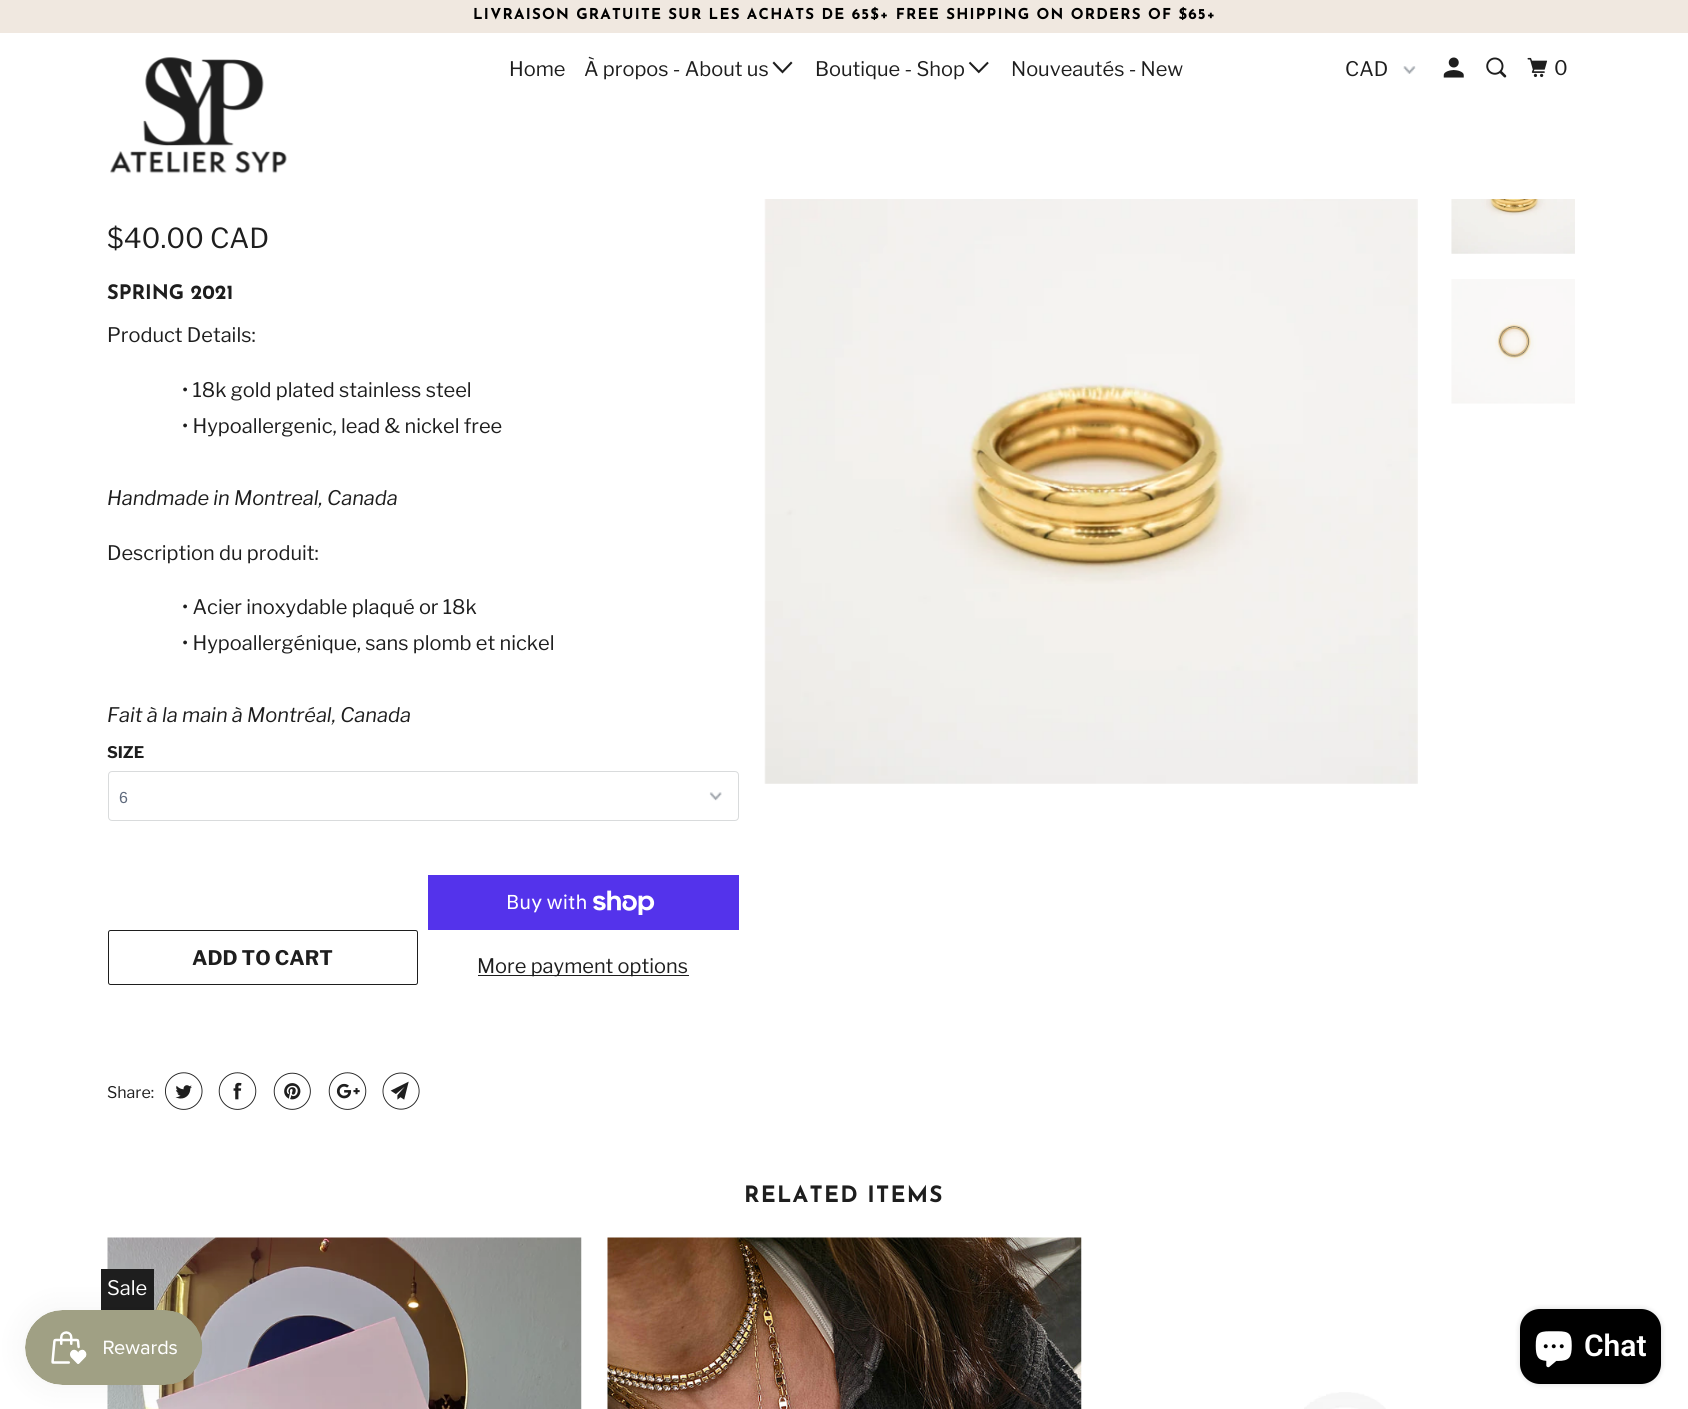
#include <cairo.h>
#include <math.h>
#include <stddef.h>

typedef struct { double x, y; const char *s; } line_t;

static void ink(cairo_t *ctx, unsigned color) {
    cairo_set_source_rgb(ctx, (color >> 16) / 255.0, (color >> 8 & 255) / 255.0, (color & 255) / 255.0);
}

static void write_spaced(cairo_t *ctx, double x, double y, const char *s, double letter, double word) {
    cairo_move_to(ctx, x, y);
    while (*s) {
        char ch[5] = {0};
        int n = 0;
        do ch[n++] = *s++; while ((*s & 0xC0) == 0x80);
        cairo_show_text(ctx, ch);
        cairo_rel_move_to(ctx, letter + word * (*ch == ' '), 0);
    }
}

static void round_path(cairo_t *ctx, double x, double y, double w, double h, double r) {
    cairo_new_sub_path(ctx);
    cairo_arc(ctx, x + w - r, y + h - r, r, 0, M_PI / 2);
    cairo_arc(ctx, x + r, y + h - r, r, M_PI / 2, M_PI);
    cairo_arc(ctx, x + r, y + r, r, M_PI, 1.5 * M_PI);
    cairo_arc(ctx, x + w - r, y + r, r, 1.5 * M_PI, 2 * M_PI);
    cairo_close_path(ctx);
}

static void blur_box(cairo_t *ctx, double x, double y, double w, double h, double r, double blur, double alpha) {
    cairo_push_group_with_content(ctx, CAIRO_CONTENT_ALPHA);
    cairo_set_operator(ctx, CAIRO_OPERATOR_SOURCE);
    for (int i = 15; i >= -15 && fmin(w, h) + blur * i / 3 > 0; i -= 2) {
        double e = blur * i / 6;
        cairo_set_source_rgba(ctx, 0, 0, 0, alpha * erfc((i - 1) / 8.5) / 2);
        round_path(ctx, x - e, y - e, w + 2 * e, h + 2 * e, fmax(0, fmin(r + e + blur * .6, fmin(w, h) / 2 + e)));
        cairo_fill(ctx);
    }
    cairo_pattern_t *soft = cairo_pop_group(ctx);
    cairo_mask(ctx, soft);
    cairo_pattern_destroy(soft);
}

static void paste(cairo_t *ctx, const char *path, double x, double y, double w, double h) {
    cairo_surface_t *image = cairo_image_surface_create_from_png(path);
    cairo_save(ctx);
    cairo_set_source_surface(ctx, image, x, y);
    cairo_rectangle(ctx, x, y, w, h);
    cairo_fill(ctx);
    cairo_restore(ctx);
    cairo_surface_destroy(image);
}

int main(void) {
    cairo_surface_t *surface = cairo_image_surface_create(CAIRO_FORMAT_RGB24, 1688, 1409);
    cairo_t *ctx = cairo_create(surface);
    cairo_font_options_t *options = cairo_font_options_create();
    cairo_font_options_set_hint_metrics(options, CAIRO_HINT_METRICS_OFF);
    cairo_font_options_set_hint_style(options, CAIRO_HINT_STYLE_NONE);
    cairo_set_font_options(ctx, options);
    cairo_set_miter_limit(ctx, 4);
    ink(ctx, 0xFFFFFF);
    cairo_paint(ctx);
    ink(ctx, 0xF0E8E0);
    cairo_rectangle(ctx, 0, 0, 1688, 33);
    cairo_fill(ctx);
    cairo_select_font_face(ctx, "Josefin Sans", CAIRO_FONT_SLANT_NORMAL, CAIRO_FONT_WEIGHT_BOLD);
    cairo_set_font_size(ctx, 15);
    ink(ctx, 0x000000);
    write_spaced(ctx, 473, 19, "LIVRAISON GRATUITE SUR LES ACHATS DE 65$+ FREE SHIPPING ON ORDERS OF $65+", 1.25, 0);
    paste(ctx, "media/1.png", 110, 57, 177, 117);
    cairo_select_font_face(ctx, "Libre Franklin", CAIRO_FONT_SLANT_NORMAL, CAIRO_FONT_WEIGHT_NORMAL);
    cairo_set_font_size(ctx, 20);
    ink(ctx, 0x1E1E1E);
    cairo_move_to(ctx, 509, 76);
    cairo_show_text(ctx, "Home");
    cairo_move_to(ctx, 584, 76);
    cairo_show_text(ctx, "À propos - About us");
    cairo_new_path(ctx);
    cairo_move_to(ctx, 777.5, 68.5);
    cairo_line_to(ctx, 772.5, 63);
    cairo_line_to(ctx, 774, 61.5);
    cairo_line_to(ctx, 782.5, 70.5);
    cairo_line_to(ctx, 791, 61.5);
    cairo_line_to(ctx, 792.5, 63);
    cairo_line_to(ctx, 782.5, 73.5);
    cairo_close_path(ctx);
    cairo_fill(ctx);
    cairo_move_to(ctx, 815, 76);
    cairo_show_text(ctx, "Boutique - Shop");
    paste(ctx, "media/2.png", 968, 61, 21, 13);
    cairo_move_to(ctx, 1011, 76);
    cairo_show_text(ctx, "Nouveautés - New");
    paste(ctx, "media/3.png", 1403, 66, 13, 8);
    cairo_move_to(ctx, 1345, 76);
    cairo_show_text(ctx, "CAD");
    paste(ctx, "media/4.png", 1443, 57, 21, 21);
    paste(ctx, "media/5.png", 1486, 57, 21, 21);
    paste(ctx, "media/6.png", 1527, 57, 21, 21);
    cairo_move_to(ctx, 1554, 75);
    cairo_show_text(ctx, "0");
    cairo_set_font_size(ctx, 27.5);
    cairo_move_to(ctx, 107, 248);
    cairo_show_text(ctx, "$40.00 CAD");
    cairo_select_font_face(ctx, "Josefin Sans", CAIRO_FONT_SLANT_NORMAL, CAIRO_FONT_WEIGHT_BOLD);
    cairo_set_font_size(ctx, 20);
    cairo_move_to(ctx, 107, 299);
    cairo_show_text(ctx, "SPRING 2021");
    cairo_select_font_face(ctx, "Libre Franklin", CAIRO_FONT_SLANT_NORMAL, CAIRO_FONT_WEIGHT_NORMAL);
    {
        static const line_t items[] = {
            {107, 342, "Product Details:"},
            {182, 397, "• 18k gold plated stainless steel"},
            {182, 433, "• Hypoallergenic, lead & nickel free"},
        };
        for (size_t i = 0; i < sizeof items / sizeof *items; i++) {
            cairo_move_to(ctx, items[i].x, items[i].y);
            cairo_show_text(ctx, items[i].s);
        }
    }
    cairo_select_font_face(ctx, "Libre Franklin", CAIRO_FONT_SLANT_ITALIC, CAIRO_FONT_WEIGHT_NORMAL);
    cairo_move_to(ctx, 107, 505);
    cairo_show_text(ctx, "Handmade in Montreal, Canada");
    cairo_select_font_face(ctx, "Libre Franklin", CAIRO_FONT_SLANT_NORMAL, CAIRO_FONT_WEIGHT_NORMAL);
    {
        static const line_t items[] = {
            {107, 560, "Description du produit:"},
            {182, 614, "• Acier inoxydable plaqué or 18k"},
            {182, 650, "• Hypoallergénique, sans plomb et nickel"},
        };
        for (size_t i = 0; i < sizeof items / sizeof *items; i++) {
            cairo_move_to(ctx, items[i].x, items[i].y);
            cairo_show_text(ctx, items[i].s);
        }
    }
    cairo_select_font_face(ctx, "Libre Franklin", CAIRO_FONT_SLANT_ITALIC, CAIRO_FONT_WEIGHT_NORMAL);
    cairo_move_to(ctx, 107, 722);
    cairo_show_text(ctx, "Fait à la main à Montréal, Canada");
    cairo_select_font_face(ctx, "Libre Franklin", CAIRO_FONT_SLANT_NORMAL, CAIRO_FONT_WEIGHT_BOLD);
    cairo_set_font_size(ctx, 16);
    cairo_move_to(ctx, 107, 758);
    cairo_show_text(ctx, "SIZE");
    paste(ctx, "media/7.png", 709, 792, 13, 9);
    round_path(ctx, 108.5, 771.5, 630, 49, 3.5);
    ink(ctx, 0xD9DBDC);
    cairo_set_line_width(ctx, 1);
    cairo_stroke(ctx);
    cairo_select_font_face(ctx, "Liberation Sans", CAIRO_FONT_SLANT_NORMAL, CAIRO_FONT_WEIGHT_NORMAL);
    ink(ctx, 0x5F6A7D);
    cairo_move_to(ctx, 119, 803);
    cairo_show_text(ctx, "6");
    round_path(ctx, 108.5, 930.5, 309, 54, 2);
    ink(ctx, 0x1E1E1E);
    cairo_stroke(ctx);
    cairo_select_font_face(ctx, "Libre Franklin", CAIRO_FONT_SLANT_NORMAL, CAIRO_FONT_WEIGHT_BOLD);
    cairo_set_font_size(ctx, 20);
    cairo_move_to(ctx, 192, 965);
    cairo_show_text(ctx, "ADD TO CART");
    ink(ctx, 0x5433EB);
    cairo_rectangle(ctx, 428, 875, 311, 55);
    cairo_fill(ctx);
    cairo_select_font_face(ctx, "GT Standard", CAIRO_FONT_SLANT_NORMAL, CAIRO_FONT_WEIGHT_NORMAL);
    ink(ctx, 0xFFFFFF);
    cairo_move_to(ctx, 506, 909);
    cairo_show_text(ctx, "Buy with");
    paste(ctx, "media/8.png", 593, 890, 62, 25);
    ink(ctx, 0x1E1E1E);
    cairo_rectangle(ctx, 478, 975, 211, 1);
    cairo_fill(ctx);
    cairo_select_font_face(ctx, "Libre Franklin", CAIRO_FONT_SLANT_NORMAL, CAIRO_FONT_WEIGHT_NORMAL);
    cairo_move_to(ctx, 477, 973);
    cairo_show_text(ctx, "More payment options");
    cairo_set_font_size(ctx, 16);
    cairo_move_to(ctx, 107, 1098);
    cairo_show_text(ctx, "Share:");
    paste(ctx, "media/9.png", 165, 1072, 38, 38);
    paste(ctx, "media/10.png", 218, 1072, 39, 38);
    paste(ctx, "media/11.png", 273, 1072, 38, 38);
    paste(ctx, "media/12.png", 328, 1072, 39, 38);
    paste(ctx, "media/13.png", 382, 1072, 38, 38);
    paste(ctx, "media/14.png", 764, 199, 654, 585);
    paste(ctx, "media/15.png", 1451, 199, 124, 55);
    paste(ctx, "media/16.png", 1451, 279, 124, 125);
    cairo_select_font_face(ctx, "Josefin Sans", CAIRO_FONT_SLANT_NORMAL, CAIRO_FONT_WEIGHT_BOLD);
    cairo_set_font_size(ctx, 22.5);
    write_spaced(ctx, 744, 1202, "RELATED ITEMS", 1.25, 0);
    paste(ctx, "media/17.png", 107, 1237, 475, 172);
    cairo_rectangle(ctx, 101, 1269, 53, 41);
    cairo_fill(ctx);
    cairo_select_font_face(ctx, "Libre Franklin", CAIRO_FONT_SLANT_NORMAL, CAIRO_FONT_WEIGHT_NORMAL);
    cairo_set_font_size(ctx, 20);
    ink(ctx, 0xFFFFFF);
    cairo_move_to(ctx, 107, 1295);
    cairo_show_text(ctx, "Sale");
    paste(ctx, "media/18.png", 607, 1237, 475, 172);
    paste(ctx, "media/19.png", 1304, 1392, 82, 17);
    ink(ctx, 0x000000);
    blur_box(ctx, 25, 1310, 178, 75, 37.5, 15.5, 0.05);
    paste(ctx, "media/20.png", 25, 1310, 178, 75);
    blur_box(ctx, 1520, 1309, 141, 75, 20, 3, 0.15);
    ink(ctx, 0x000000);
    round_path(ctx, 1520, 1309, 141, 75, 20);
    cairo_fill(ctx);
    paste(ctx, "media/21.png", 1535, 1331, 37, 37);
    cairo_select_font_face(ctx, "Roboto SemiBold", CAIRO_FONT_SLANT_NORMAL, CAIRO_FONT_WEIGHT_NORMAL);
    cairo_set_font_size(ctx, 30);
    ink(ctx, 0xFFFFFF);
    cairo_move_to(ctx, 1584, 1356);
    cairo_show_text(ctx, "Chat");
    cairo_surface_write_to_png(surface, "image.png");
    cairo_font_options_destroy(options);
    cairo_destroy(ctx);
    cairo_surface_destroy(surface);
    return 0;
}
